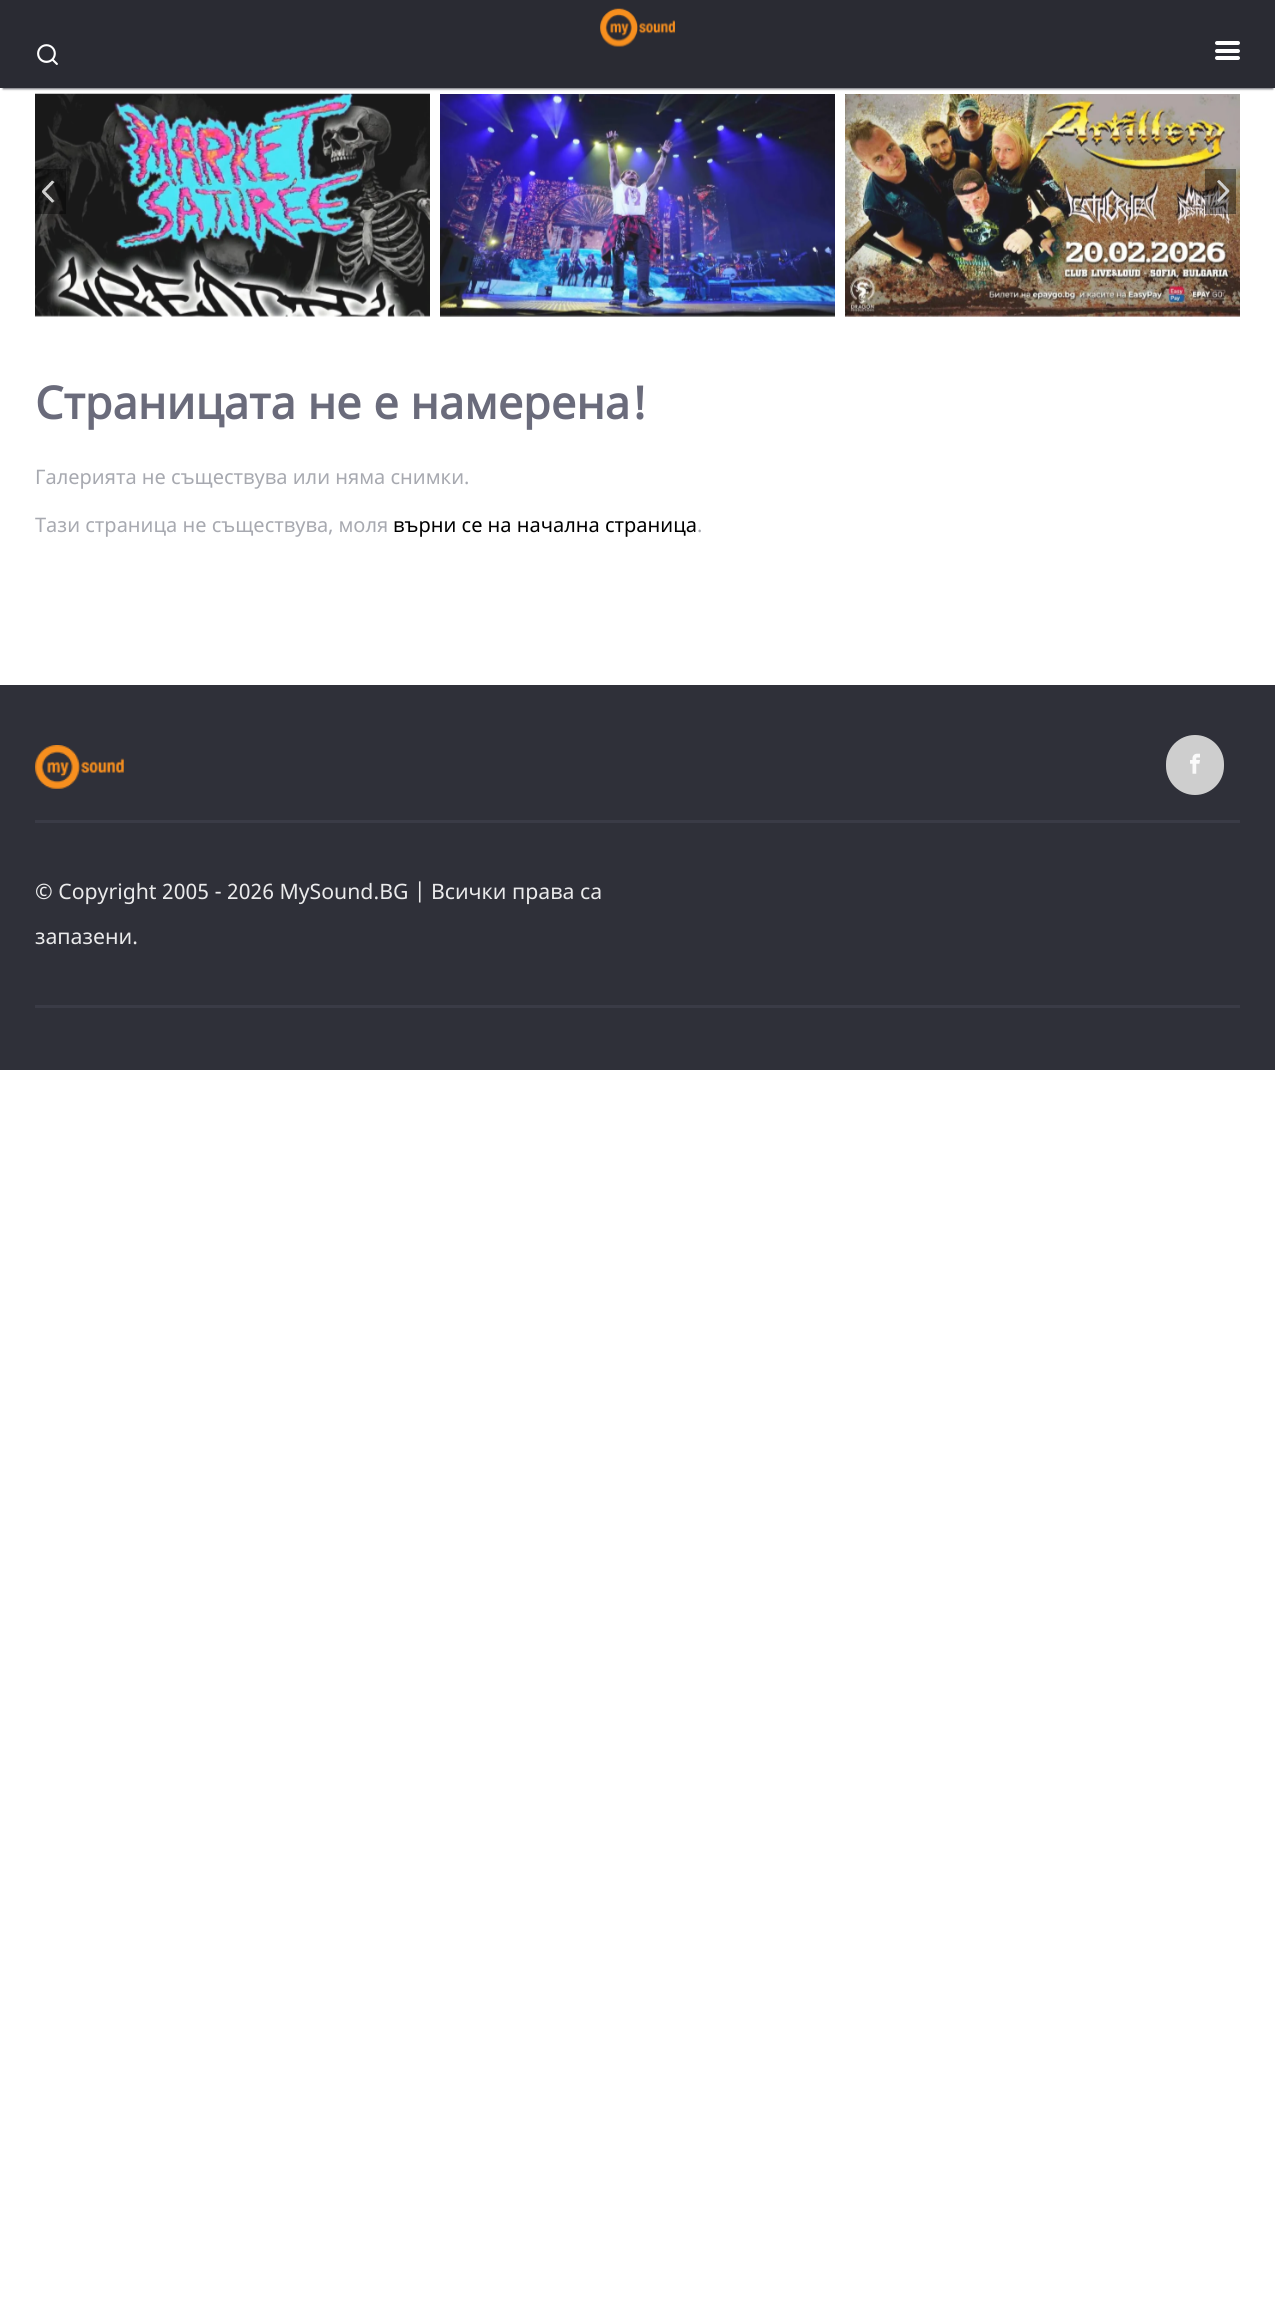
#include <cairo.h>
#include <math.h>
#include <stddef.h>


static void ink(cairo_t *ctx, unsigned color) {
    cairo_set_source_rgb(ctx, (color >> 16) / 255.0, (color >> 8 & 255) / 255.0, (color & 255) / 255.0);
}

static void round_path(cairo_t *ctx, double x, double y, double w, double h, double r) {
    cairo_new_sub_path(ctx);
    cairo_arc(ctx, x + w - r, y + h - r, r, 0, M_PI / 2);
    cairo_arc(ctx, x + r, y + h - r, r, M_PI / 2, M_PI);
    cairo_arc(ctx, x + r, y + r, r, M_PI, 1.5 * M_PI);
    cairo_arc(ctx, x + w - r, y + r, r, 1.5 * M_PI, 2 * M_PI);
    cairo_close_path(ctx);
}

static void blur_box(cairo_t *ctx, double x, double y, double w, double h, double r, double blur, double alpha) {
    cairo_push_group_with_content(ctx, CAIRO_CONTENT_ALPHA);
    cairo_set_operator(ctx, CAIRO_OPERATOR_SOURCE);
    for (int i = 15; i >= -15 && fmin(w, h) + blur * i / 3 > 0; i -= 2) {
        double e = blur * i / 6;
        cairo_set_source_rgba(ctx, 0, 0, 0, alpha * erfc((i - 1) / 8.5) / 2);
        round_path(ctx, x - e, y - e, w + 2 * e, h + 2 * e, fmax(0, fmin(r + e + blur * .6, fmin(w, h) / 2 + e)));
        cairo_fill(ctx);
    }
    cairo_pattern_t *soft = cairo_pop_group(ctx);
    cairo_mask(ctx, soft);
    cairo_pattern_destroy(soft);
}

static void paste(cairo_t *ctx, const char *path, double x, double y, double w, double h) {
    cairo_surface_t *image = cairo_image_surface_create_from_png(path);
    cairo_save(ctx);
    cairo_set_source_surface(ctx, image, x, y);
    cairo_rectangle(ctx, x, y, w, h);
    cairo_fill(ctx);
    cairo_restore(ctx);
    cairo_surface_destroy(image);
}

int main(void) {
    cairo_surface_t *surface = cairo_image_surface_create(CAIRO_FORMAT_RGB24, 1275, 2307);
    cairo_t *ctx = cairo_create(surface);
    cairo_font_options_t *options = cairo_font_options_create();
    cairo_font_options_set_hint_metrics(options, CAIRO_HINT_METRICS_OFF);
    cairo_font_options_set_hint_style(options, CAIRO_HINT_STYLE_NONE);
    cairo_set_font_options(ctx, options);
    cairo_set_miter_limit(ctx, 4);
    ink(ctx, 0xFFFFFF);
    cairo_paint(ctx);
    ink(ctx, 0x2A2B35);
    blur_box(ctx, 3, 6, 1270, 83, 0, 1, 0.7);
    ink(ctx, 0x2A2B33);
    cairo_rectangle(ctx, 0, 0, 1275, 88);
    cairo_fill(ctx);
    paste(ctx, "media/1.png", 600, 8, 75, 39);
    paste(ctx, "media/2.png", 37, 44, 21, 21);
    ink(ctx, 0xFFFFFF);
    round_path(ctx, 1215, 41, 25, 4, 2);
    cairo_fill(ctx);
    round_path(ctx, 1215, 49, 25, 4, 2);
    cairo_fill(ctx);
    round_path(ctx, 1215, 56, 25, 4, 2);
    cairo_fill(ctx);
    paste(ctx, "media/3.png", 35, 93, 395, 224);
    paste(ctx, "media/4.png", 440, 94, 395, 223);
    paste(ctx, "media/5.png", 845, 94, 395, 223);
    cairo_set_source_rgba(ctx, 0, 0, 0, 0.4);
    cairo_rectangle(ctx, 35, 169, 31, 45);
    cairo_fill(ctx);
    paste(ctx, "media/6.png", 42, 180, 13, 23);
    cairo_rectangle(ctx, 1205, 169, 31, 45);
    cairo_fill(ctx);
    paste(ctx, "media/7.png", 1217, 180, 13, 22);
    cairo_select_font_face(ctx, "Noto Sans", CAIRO_FONT_SLANT_NORMAL, CAIRO_FONT_WEIGHT_BOLD);
    cairo_set_font_size(ctx, 45);
    ink(ctx, 0x6A6B7B);
    cairo_move_to(ctx, 35, 419);
    cairo_show_text(ctx, "Страницата не е намерена!");
    cairo_select_font_face(ctx, "Noto Sans", CAIRO_FONT_SLANT_NORMAL, CAIRO_FONT_WEIGHT_NORMAL);
    cairo_set_font_size(ctx, 20);
    ink(ctx, 0xA7A9B0);
    cairo_move_to(ctx, 35, 484);
    cairo_show_text(ctx, "Галерията не съществува или няма снимки.");
    cairo_move_to(ctx, 35, 532);
    cairo_show_text(ctx, "Тази страница не съществува, моля");
    ink(ctx, 0x000000);
    cairo_move_to(ctx, 393, 532);
    cairo_show_text(ctx, "върни се на начална страница");
    ink(ctx, 0xA7A9B0);
    cairo_move_to(ctx, 697, 532);
    cairo_show_text(ctx, ".");
    ink(ctx, 0x2F3039);
    cairo_rectangle(ctx, 0, 685, 1275, 385);
    cairo_fill(ctx);
    ink(ctx, 0x3A3B46);
    cairo_rectangle(ctx, 35, 820, 1205, 3);
    cairo_fill(ctx);
    paste(ctx, "media/8.png", 35, 745, 89, 44);
    ink(ctx, 0xCECECE);
    round_path(ctx, 1166, 735, 58, 60, 29);
    cairo_fill(ctx);
    paste(ctx, "media/9.png", 1190, 753, 10, 21);
    ink(ctx, 0x3A3B46);
    cairo_rectangle(ctx, 35, 1005, 1205, 3);
    cairo_fill(ctx);
    cairo_set_font_size(ctx, 21.25);
    ink(ctx, 0xEAEAEB);
    cairo_move_to(ctx, 35, 899);
    cairo_show_text(ctx, "© Copyright 2005 - 2026 MySound.BG | Всички права са");
    cairo_move_to(ctx, 35, 944);
    cairo_show_text(ctx, "запазени.");
    cairo_surface_write_to_png(surface, "image.png");
    cairo_font_options_destroy(options);
    cairo_destroy(ctx);
    cairo_surface_destroy(surface);
    return 0;
}
